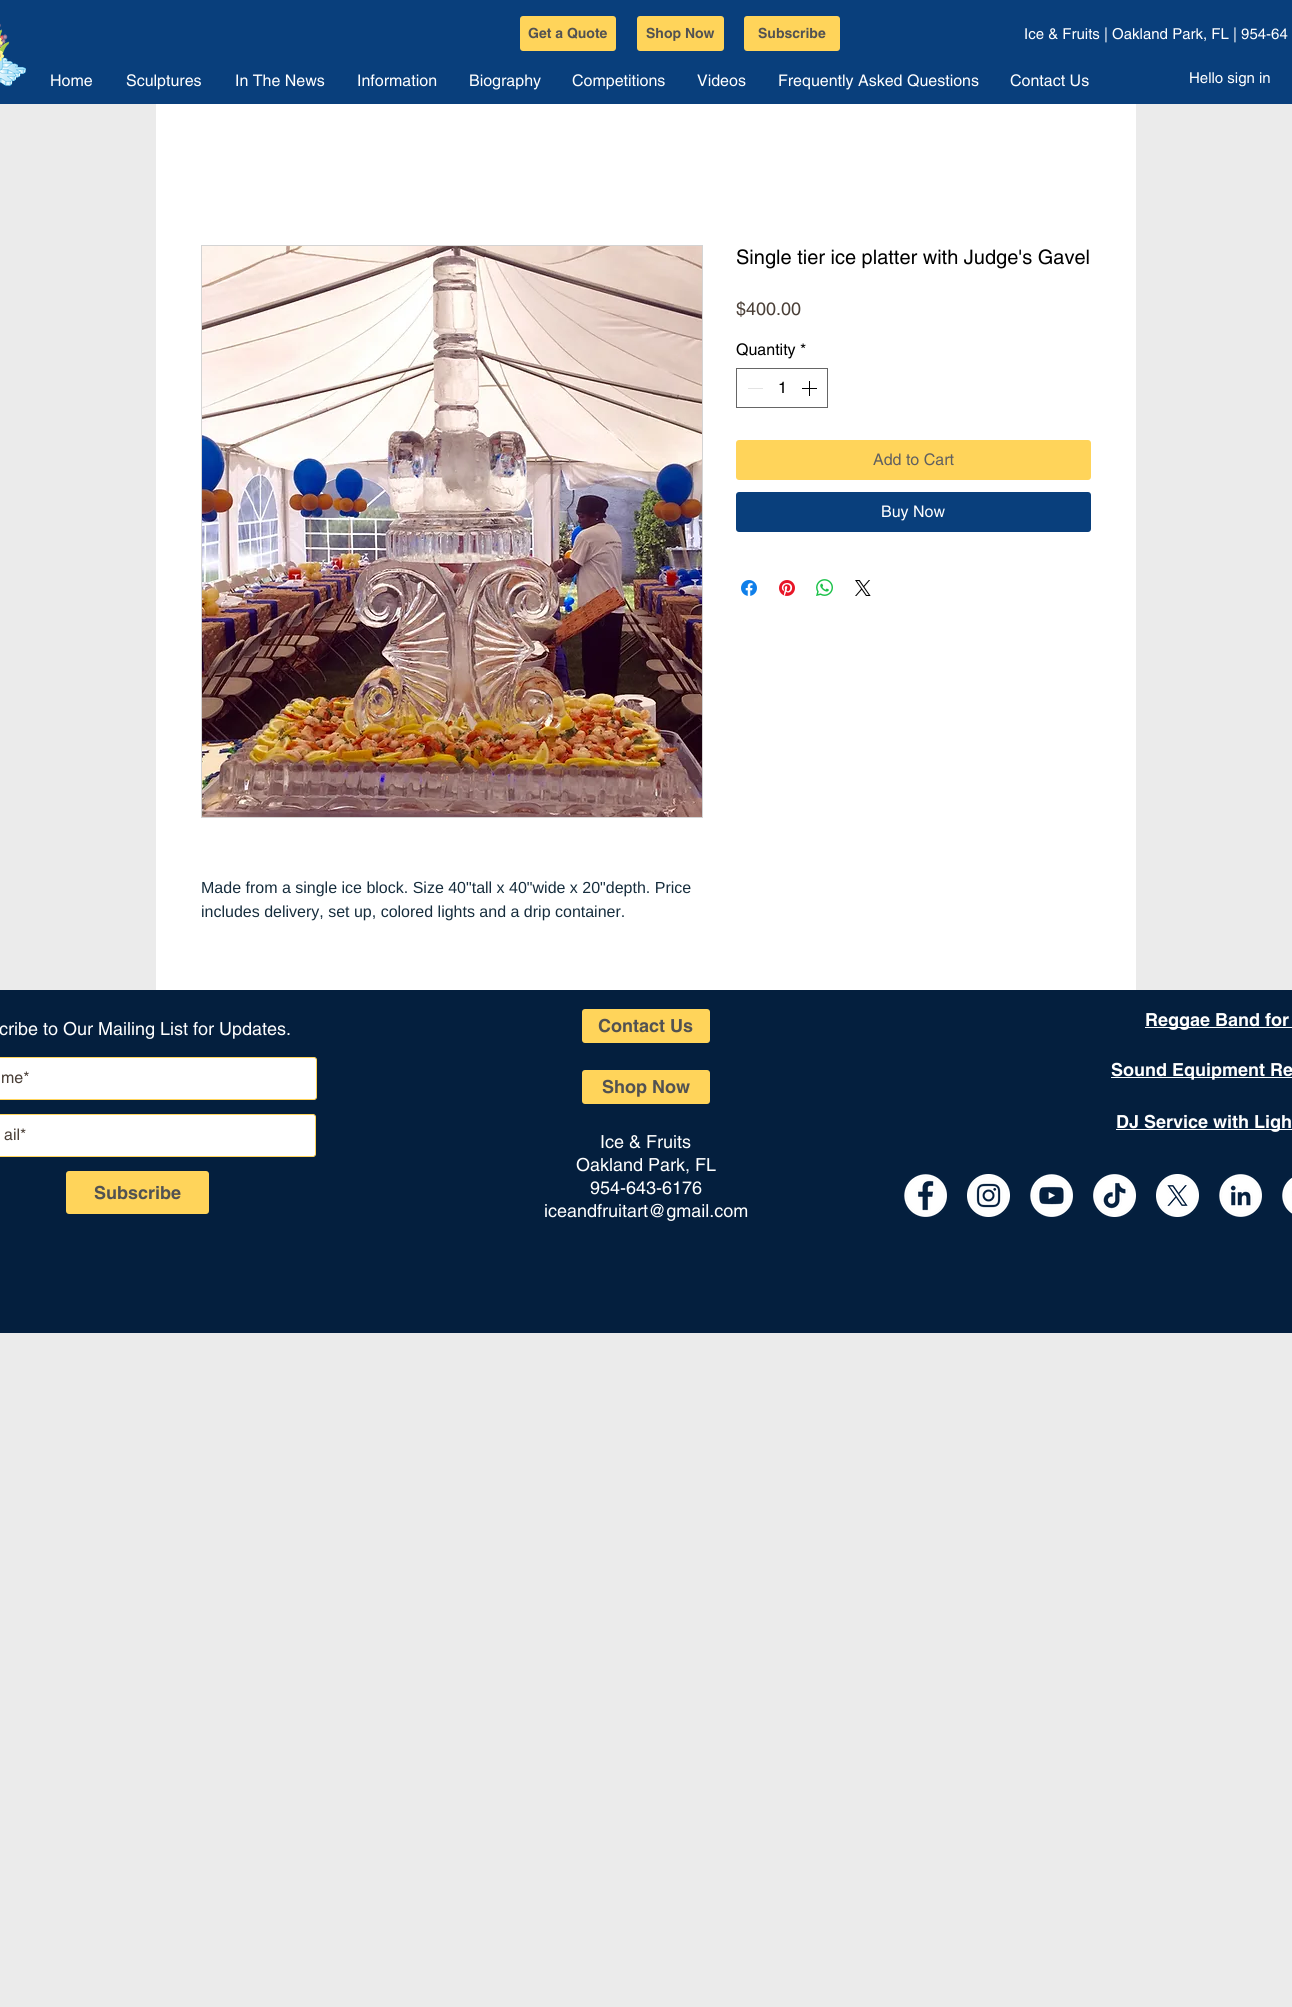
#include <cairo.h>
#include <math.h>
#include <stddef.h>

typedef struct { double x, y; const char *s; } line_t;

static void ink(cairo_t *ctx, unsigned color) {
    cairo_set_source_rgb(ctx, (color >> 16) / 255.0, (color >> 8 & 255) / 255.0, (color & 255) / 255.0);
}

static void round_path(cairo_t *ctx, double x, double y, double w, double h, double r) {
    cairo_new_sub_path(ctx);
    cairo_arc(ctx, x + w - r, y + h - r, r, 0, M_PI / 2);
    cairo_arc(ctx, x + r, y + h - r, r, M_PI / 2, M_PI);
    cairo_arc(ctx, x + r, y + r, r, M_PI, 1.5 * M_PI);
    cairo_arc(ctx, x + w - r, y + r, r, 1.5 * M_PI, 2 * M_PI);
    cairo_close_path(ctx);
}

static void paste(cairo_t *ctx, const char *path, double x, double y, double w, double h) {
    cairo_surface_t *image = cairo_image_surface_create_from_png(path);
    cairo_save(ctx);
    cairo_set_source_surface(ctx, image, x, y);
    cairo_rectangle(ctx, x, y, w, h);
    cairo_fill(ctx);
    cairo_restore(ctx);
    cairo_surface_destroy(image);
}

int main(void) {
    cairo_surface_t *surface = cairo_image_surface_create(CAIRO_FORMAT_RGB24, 1292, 2007);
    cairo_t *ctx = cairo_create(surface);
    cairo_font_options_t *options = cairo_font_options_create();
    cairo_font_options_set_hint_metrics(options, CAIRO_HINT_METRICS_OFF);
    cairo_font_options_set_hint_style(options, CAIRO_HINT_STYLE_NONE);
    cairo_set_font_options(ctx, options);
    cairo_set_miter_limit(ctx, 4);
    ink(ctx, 0xEBEBEB);
    cairo_paint(ctx);
    ink(ctx, 0x093F7C);
    cairo_rectangle(ctx, 0, 0, 1292, 104);
    cairo_fill(ctx);
    paste(ctx, "media/1.png", 0, 23, 26, 63);
    ink(ctx, 0xFFD45A);
    round_path(ctx, 520, 16, 96, 35, 3);
    cairo_fill(ctx);
    cairo_select_font_face(ctx, "helvetica", CAIRO_FONT_SLANT_NORMAL, CAIRO_FONT_WEIGHT_BOLD);
    cairo_set_font_size(ctx, 14);
    ink(ctx, 0x525252);
    cairo_move_to(ctx, 528, 38);
    cairo_show_text(ctx, "Get a Quote");
    ink(ctx, 0xFFD45A);
    round_path(ctx, 637, 16, 87, 35, 3);
    cairo_fill(ctx);
    ink(ctx, 0x525252);
    cairo_move_to(ctx, 646, 38);
    cairo_show_text(ctx, "Shop Now");
    ink(ctx, 0xFFD45A);
    round_path(ctx, 744, 16, 96, 35, 3);
    cairo_fill(ctx);
    ink(ctx, 0x525252);
    cairo_move_to(ctx, 758, 38);
    cairo_show_text(ctx, "Subscribe");
    cairo_select_font_face(ctx, "helvetica", CAIRO_FONT_SLANT_NORMAL, CAIRO_FONT_WEIGHT_NORMAL);
    cairo_set_font_size(ctx, 15);
    ink(ctx, 0xFFFFFF);
    cairo_move_to(ctx, 1024, 39);
    cairo_show_text(ctx, "Ice & Fruits | Oakland Park, FL | 954-64");
    cairo_set_font_size(ctx, 16);
    {
        static const line_t items[] = {
            {50, 86, "Home"},
            {126, 86, "Sculptures"},
            {235, 86, "In The News"},
            {357, 86, "Information"},
            {469, 86, "Biography"},
            {572, 86, "Competitions"},
            {697, 86, "Videos"},
            {778, 86, "Frequently Asked Questions"},
            {1010, 86, "Contact Us"},
        };
        for (size_t i = 0; i < sizeof items / sizeof *items; i++) {
            cairo_move_to(ctx, items[i].x, items[i].y);
            cairo_show_text(ctx, items[i].s);
        }
    }
    cairo_set_font_size(ctx, 15);
    cairo_move_to(ctx, 1189, 83);
    cairo_show_text(ctx, "Hello sign in");
    cairo_rectangle(ctx, 156, 104, 980, 886);
    cairo_fill(ctx);
    cairo_set_font_size(ctx, 20);
    ink(ctx, 0x000000);
    cairo_move_to(ctx, 736, 264);
    cairo_show_text(ctx, "Single tier ice platter with Judge's Gavel");
    cairo_set_font_size(ctx, 18);
    ink(ctx, 0x4A3F37);
    cairo_move_to(ctx, 736, 315);
    cairo_show_text(ctx, "$400.00");
    cairo_set_font_size(ctx, 16);
    ink(ctx, 0x000000);
    cairo_move_to(ctx, 736, 355);
    cairo_show_text(ctx, "Quantity");
    cairo_move_to(ctx, 800, 355);
    cairo_show_text(ctx, "*");
    cairo_rectangle(ctx, 736.5, 368.5, 91, 39);
    ink(ctx, 0x666666);
    cairo_set_line_width(ctx, 1);
    cairo_stroke(ctx);
    ink(ctx, 0xE3E3E3);
    cairo_rectangle(ctx, 748, 388, 15, 1);
    cairo_fill(ctx);
    ink(ctx, 0x000000);
    cairo_move_to(ctx, 778, 393);
    cairo_show_text(ctx, "1");
    paste(ctx, "media/2.png", 802, 381, 15, 15);
    ink(ctx, 0xFFD45A);
    round_path(ctx, 736, 440, 355, 40, 3);
    cairo_fill(ctx);
    ink(ctx, 0x606060);
    cairo_move_to(ctx, 873, 465);
    cairo_show_text(ctx, "Add to Cart");
    ink(ctx, 0x093F7C);
    round_path(ctx, 736, 492, 355, 40, 3);
    cairo_fill(ctx);
    ink(ctx, 0xFFFFFF);
    cairo_move_to(ctx, 881, 517);
    cairo_show_text(ctx, "Buy Now");
    paste(ctx, "media/3.png", 741, 580, 16, 16);
    paste(ctx, "media/4.png", 779, 580, 16, 16);
    paste(ctx, "media/5.png", 816, 579, 17, 17);
    paste(ctx, "media/6.png", 855, 580, 16, 16);
    cairo_rectangle(ctx, 201.5, 245.5, 501, 572);
    ink(ctx, 0xD4D4D4);
    cairo_stroke(ctx);
    paste(ctx, "media/7.png", 202, 246, 500, 571);
    cairo_select_font_face(ctx, "Liberation Sans", CAIRO_FONT_SLANT_NORMAL, CAIRO_FONT_WEIGHT_NORMAL);
    ink(ctx, 0x162D3D);
    cairo_move_to(ctx, 201, 893);
    cairo_show_text(ctx, "Made from a single ice block. Size 40\"tall x 40\"wide x 20\"depth. Price");
    cairo_move_to(ctx, 201, 917);
    cairo_show_text(ctx, "includes delivery, set up, colored lights and a drip container.");
    ink(ctx, 0x041F3E);
    cairo_rectangle(ctx, 0, 990, 1292, 343);
    cairo_fill(ctx);
    cairo_select_font_face(ctx, "helvetica", CAIRO_FONT_SLANT_NORMAL, CAIRO_FONT_WEIGHT_NORMAL);
    cairo_set_font_size(ctx, 18);
    ink(ctx, 0xFFFFFF);
    cairo_move_to(ctx, -1, 1035);
    cairo_show_text(ctx, "cribe to Our Mailing List for Updates.");
    round_path(ctx, -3.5, 1057.5, 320, 42, 2.5);
    cairo_fill_preserve(ctx);
    ink(ctx, 0xFFD45A);
    cairo_stroke(ctx);
    cairo_set_font_size(ctx, 16);
    ink(ctx, 0x4A3F37);
    cairo_move_to(ctx, 1, 1083);
    cairo_show_text(ctx, "me*");
    ink(ctx, 0xFFFFFF);
    round_path(ctx, -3.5, 1114.5, 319, 42, 2.5);
    cairo_fill_preserve(ctx);
    ink(ctx, 0xFFD45A);
    cairo_stroke(ctx);
    ink(ctx, 0x4A3F37);
    cairo_move_to(ctx, 4, 1140);
    cairo_show_text(ctx, "ail*");
    ink(ctx, 0xFFD45A);
    round_path(ctx, 66, 1171, 143, 43, 3);
    cairo_fill(ctx);
    cairo_select_font_face(ctx, "helvetica", CAIRO_FONT_SLANT_NORMAL, CAIRO_FONT_WEIGHT_BOLD);
    cairo_set_font_size(ctx, 18);
    ink(ctx, 0x525252);
    cairo_move_to(ctx, 94, 1199);
    cairo_show_text(ctx, "Subscribe");
    ink(ctx, 0xFFD45A);
    round_path(ctx, 582, 1009, 128, 34, 3);
    cairo_fill(ctx);
    ink(ctx, 0x525252);
    cairo_move_to(ctx, 598, 1032);
    cairo_show_text(ctx, "Contact Us");
    ink(ctx, 0xFFFFFF);
    cairo_rectangle(ctx, 1145, 1027, 147, 1);
    cairo_fill(ctx);
    cairo_move_to(ctx, 1145, 1026);
    cairo_show_text(ctx, "Reggae Band for");
    cairo_rectangle(ctx, 1111, 1077, 181, 1);
    cairo_fill(ctx);
    cairo_move_to(ctx, 1111, 1076);
    cairo_show_text(ctx, "Sound Equipment Re");
    ink(ctx, 0xFFD45A);
    round_path(ctx, 582, 1070, 128, 34, 3);
    cairo_fill(ctx);
    ink(ctx, 0x525252);
    cairo_move_to(ctx, 602, 1093);
    cairo_show_text(ctx, "Shop Now");
    ink(ctx, 0xFFFFFF);
    cairo_rectangle(ctx, 1116, 1129, 176, 1);
    cairo_fill(ctx);
    cairo_move_to(ctx, 1116, 1128);
    cairo_show_text(ctx, "DJ Service with Ligh");
    cairo_select_font_face(ctx, "helvetica", CAIRO_FONT_SLANT_NORMAL, CAIRO_FONT_WEIGHT_NORMAL);
    {
        static const line_t items[] = {
            {600, 1148, "Ice & Fruits"},
            {576, 1171, "Oakland Park, FL"},
            {590, 1194, "954-643-6176"},
            {544, 1217, "iceandfruitart@gmail.com"},
        };
        for (size_t i = 0; i < sizeof items / sizeof *items; i++) {
            cairo_move_to(ctx, items[i].x, items[i].y);
            cairo_show_text(ctx, items[i].s);
        }
    }
    paste(ctx, "media/8.png", 904, 1174, 43, 43);
    paste(ctx, "media/9.png", 967, 1174, 43, 43);
    paste(ctx, "media/10.png", 1030, 1174, 43, 43);
    paste(ctx, "media/11.png", 1093, 1174, 43, 43);
    paste(ctx, "media/12.png", 1156, 1174, 43, 43);
    paste(ctx, "media/13.png", 1219, 1174, 43, 43);
    paste(ctx, "media/14.png", 1282, 1177, 10, 37);
    cairo_surface_write_to_png(surface, "image.png");
    cairo_font_options_destroy(options);
    cairo_destroy(ctx);
    cairo_surface_destroy(surface);
    return 0;
}
